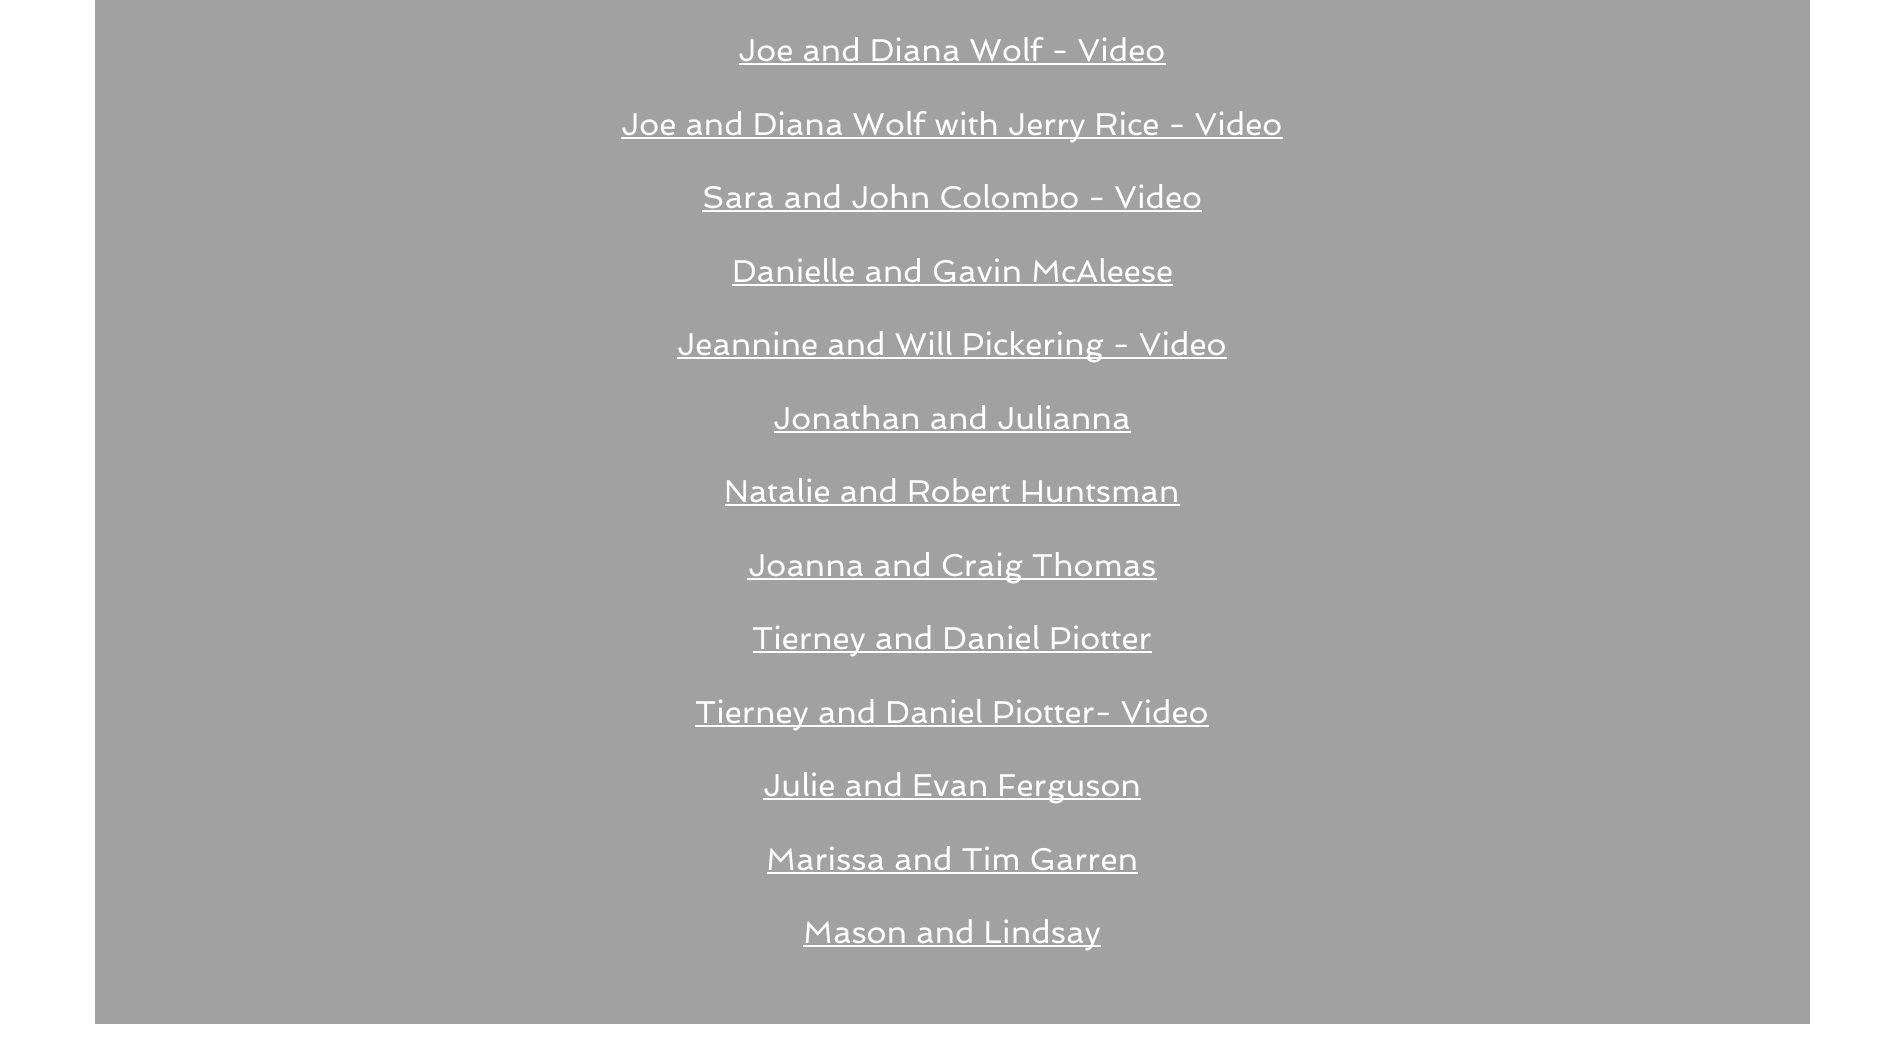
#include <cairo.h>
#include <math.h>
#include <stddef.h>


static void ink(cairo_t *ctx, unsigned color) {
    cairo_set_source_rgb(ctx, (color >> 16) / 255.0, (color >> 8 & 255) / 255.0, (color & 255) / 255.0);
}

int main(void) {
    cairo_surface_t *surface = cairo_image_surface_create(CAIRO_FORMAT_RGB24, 1904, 1039);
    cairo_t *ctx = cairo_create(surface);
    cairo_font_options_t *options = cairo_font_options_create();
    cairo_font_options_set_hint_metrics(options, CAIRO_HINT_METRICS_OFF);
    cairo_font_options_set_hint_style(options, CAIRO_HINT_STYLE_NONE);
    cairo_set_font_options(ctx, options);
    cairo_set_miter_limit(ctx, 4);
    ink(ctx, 0xFFFFFF);
    cairo_paint(ctx);
    ink(ctx, 0xA1A1A1);
    cairo_rectangle(ctx, 95, 0, 1715, 1024);
    cairo_fill(ctx);
    cairo_select_font_face(ctx, "Spinnaker", CAIRO_FONT_SLANT_NORMAL, CAIRO_FONT_WEIGHT_NORMAL);
    cairo_set_font_size(ctx, 31.5);
    ink(ctx, 0xFFFFFF);
    cairo_move_to(ctx, 738, 61);
    cairo_show_text(ctx, "Joe and Diana Wolf - Video");
    cairo_rectangle(ctx, 739, 63, 427, 2);
    cairo_fill(ctx);
    cairo_rectangle(ctx, 621, 137, 662, 2);
    cairo_fill(ctx);
    cairo_move_to(ctx, 621, 135);
    cairo_show_text(ctx, "Joe and Diana Wolf with Jerry Rice - Video");
    cairo_move_to(ctx, 702, 208);
    cairo_show_text(ctx, "Sara and John Colombo - Video");
    cairo_rectangle(ctx, 702, 210, 500, 2);
    cairo_fill(ctx);
    cairo_move_to(ctx, 732, 282);
    cairo_show_text(ctx, "Danielle and Gavin McAleese");
    cairo_rectangle(ctx, 732, 284, 441, 2);
    cairo_fill(ctx);
    cairo_rectangle(ctx, 677, 357, 550, 2);
    cairo_fill(ctx);
    cairo_move_to(ctx, 677, 355);
    cairo_show_text(ctx, "Jeannine and Will Pickering - Video");
    cairo_move_to(ctx, 773, 429);
    cairo_show_text(ctx, "Jonathan and Julianna");
    cairo_rectangle(ctx, 774, 431, 357, 2);
    cairo_fill(ctx);
    cairo_move_to(ctx, 724, 502);
    cairo_show_text(ctx, "Natalie and Robert Huntsman");
    cairo_rectangle(ctx, 725, 504, 455, 2);
    cairo_fill(ctx);
    cairo_rectangle(ctx, 747, 578, 410, 2);
    cairo_fill(ctx);
    cairo_move_to(ctx, 748, 576);
    cairo_show_text(ctx, "Joanna and Craig Thomas");
    cairo_rectangle(ctx, 753, 651, 399, 2);
    cairo_fill(ctx);
    cairo_move_to(ctx, 752, 649);
    cairo_show_text(ctx, "Tierney and Daniel Piotter");
    cairo_rectangle(ctx, 695, 725, 514, 2);
    cairo_fill(ctx);
    cairo_move_to(ctx, 695, 723);
    cairo_show_text(ctx, "Tierney and Daniel Piotter- Video");
    cairo_rectangle(ctx, 763, 798, 378, 2);
    cairo_fill(ctx);
    cairo_move_to(ctx, 763, 796);
    cairo_show_text(ctx, "Julie and Evan Ferguson");
    cairo_move_to(ctx, 766, 870);
    cairo_show_text(ctx, "Marissa and Tim Garren");
    cairo_rectangle(ctx, 767, 872, 371, 2);
    cairo_fill(ctx);
    cairo_rectangle(ctx, 803, 945, 298, 2);
    cairo_fill(ctx);
    cairo_move_to(ctx, 803, 943);
    cairo_show_text(ctx, "Mason and Lindsay");
    cairo_surface_write_to_png(surface, "image.png");
    cairo_font_options_destroy(options);
    cairo_destroy(ctx);
    cairo_surface_destroy(surface);
    return 0;
}
